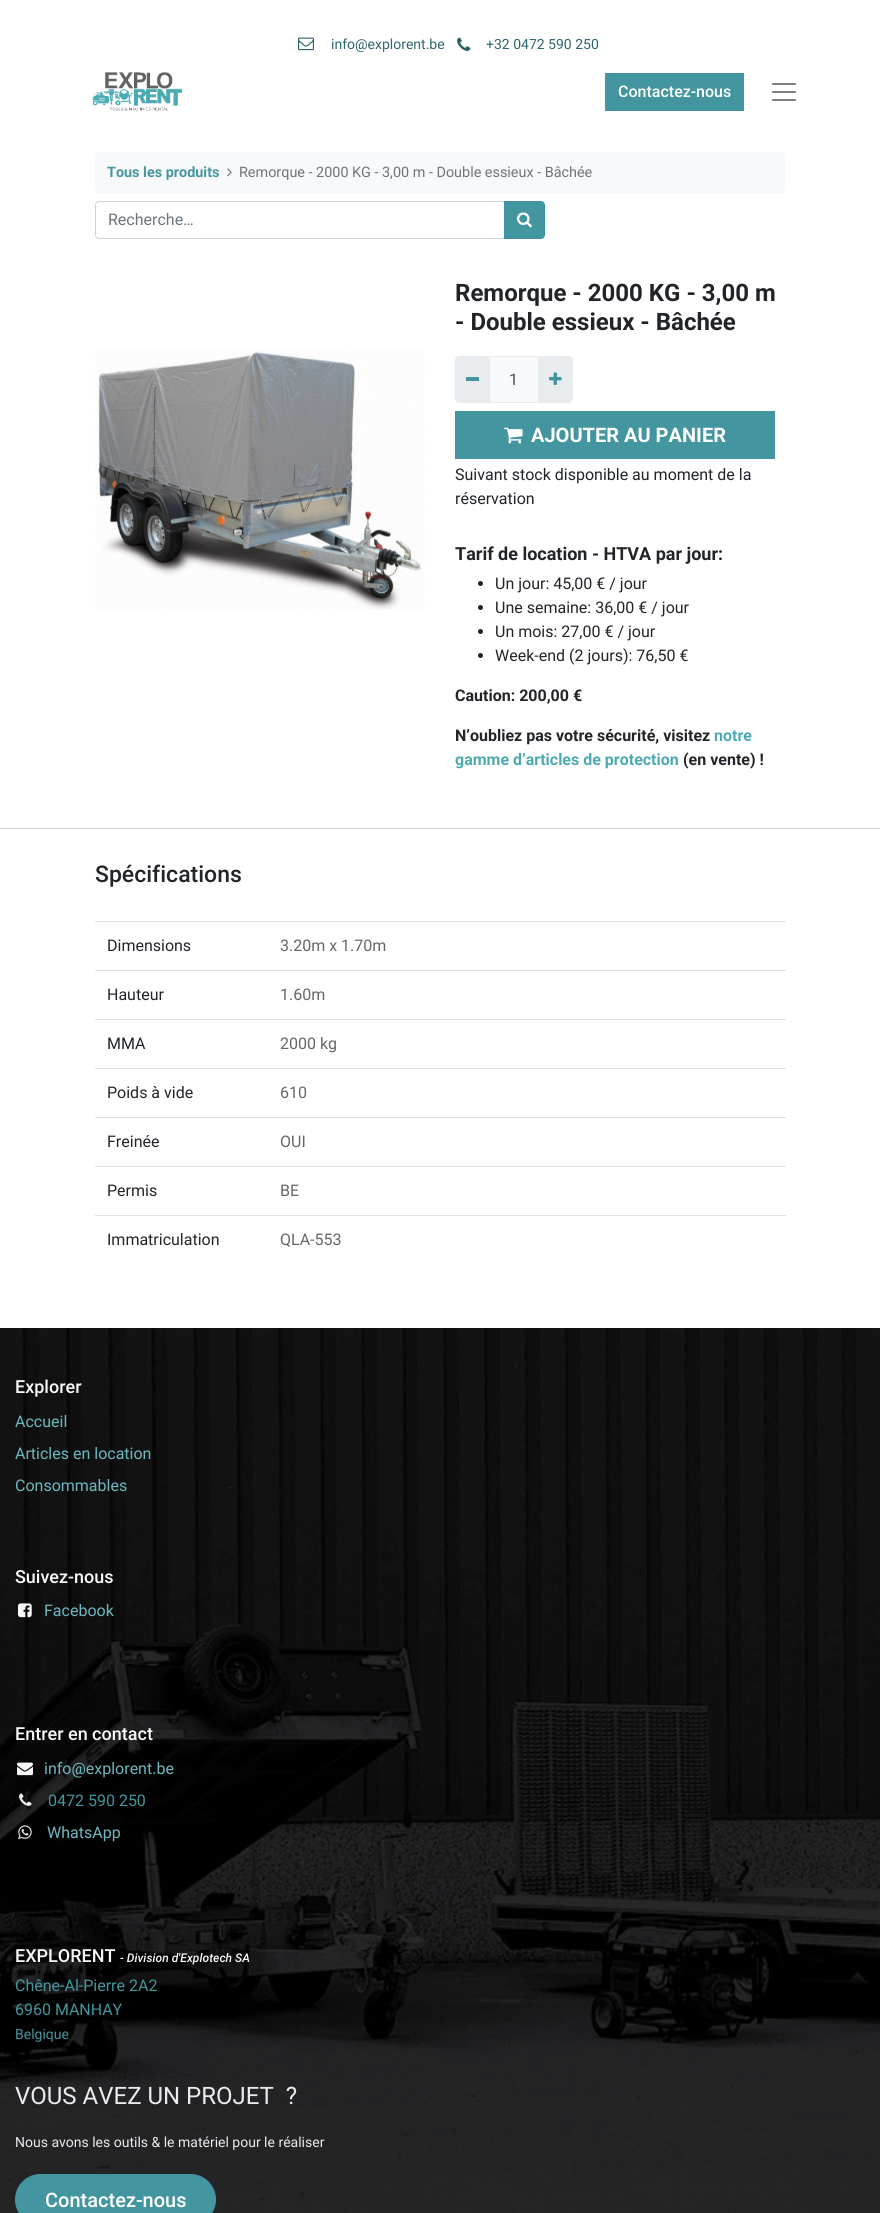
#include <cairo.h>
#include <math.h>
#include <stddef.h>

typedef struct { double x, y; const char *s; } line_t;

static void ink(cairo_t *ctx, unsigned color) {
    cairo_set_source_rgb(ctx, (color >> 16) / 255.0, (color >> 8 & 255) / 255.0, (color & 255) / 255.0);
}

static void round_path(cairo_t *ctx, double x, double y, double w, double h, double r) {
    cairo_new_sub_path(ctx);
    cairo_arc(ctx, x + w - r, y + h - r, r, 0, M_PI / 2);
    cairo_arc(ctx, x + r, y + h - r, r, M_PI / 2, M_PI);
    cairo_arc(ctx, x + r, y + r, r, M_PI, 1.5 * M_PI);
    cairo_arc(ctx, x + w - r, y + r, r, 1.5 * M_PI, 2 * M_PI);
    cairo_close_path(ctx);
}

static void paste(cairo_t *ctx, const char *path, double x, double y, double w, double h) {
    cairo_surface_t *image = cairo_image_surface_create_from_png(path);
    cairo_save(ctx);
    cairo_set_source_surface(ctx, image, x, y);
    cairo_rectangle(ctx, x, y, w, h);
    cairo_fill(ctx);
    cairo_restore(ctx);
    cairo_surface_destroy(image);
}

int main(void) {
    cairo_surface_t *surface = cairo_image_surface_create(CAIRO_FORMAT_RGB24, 880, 2213);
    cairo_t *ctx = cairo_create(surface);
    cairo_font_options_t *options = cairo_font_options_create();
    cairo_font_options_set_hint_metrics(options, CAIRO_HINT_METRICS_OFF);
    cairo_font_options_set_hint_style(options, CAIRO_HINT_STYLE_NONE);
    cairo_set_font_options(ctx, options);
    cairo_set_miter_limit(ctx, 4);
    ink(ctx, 0xFFFFFF);
    cairo_paint(ctx);
    paste(ctx, "media/1.png", 298, 37, 16, 14);
    cairo_select_font_face(ctx, "Roboto", CAIRO_FONT_SLANT_NORMAL, CAIRO_FONT_WEIGHT_NORMAL);
    cairo_set_font_size(ctx, 14);
    ink(ctx, 0x2E676D);
    cairo_move_to(ctx, 331, 49);
    cairo_show_text(ctx, "info@explorent.be");
    paste(ctx, "media/2.png", 457, 37, 14, 14);
    cairo_move_to(ctx, 486, 49);
    cairo_show_text(ctx, "+32 0472 590 250");
    paste(ctx, "media/3.png", 92, 72, 90, 39);
    ink(ctx, 0x43969F);
    cairo_rectangle(ctx, 605, 73, 139, 38);
    cairo_fill(ctx);
    cairo_select_font_face(ctx, "Roboto Medium", CAIRO_FONT_SLANT_NORMAL, CAIRO_FONT_WEIGHT_NORMAL);
    cairo_set_font_size(ctx, 16);
    ink(ctx, 0xFFFFFF);
    cairo_move_to(ctx, 618, 97);
    cairo_show_text(ctx, "Contactez-nous");
    paste(ctx, "media/4.png", 772, 83, 24, 18);
    ink(ctx, 0xF8F9FA);
    round_path(ctx, 95, 152, 690, 41, 4);
    cairo_fill(ctx);
    cairo_select_font_face(ctx, "Roboto", CAIRO_FONT_SLANT_NORMAL, CAIRO_FONT_WEIGHT_BOLD);
    cairo_set_font_size(ctx, 14.4);
    ink(ctx, 0x43969F);
    cairo_move_to(ctx, 107, 177);
    cairo_show_text(ctx, "Tous les produits");
    paste(ctx, "media/5.png", 227, 168, 5, 9);
    cairo_select_font_face(ctx, "Roboto", CAIRO_FONT_SLANT_NORMAL, CAIRO_FONT_WEIGHT_NORMAL);
    ink(ctx, 0x6C757D);
    cairo_move_to(ctx, 239, 177);
    cairo_show_text(ctx, "Remorque - 2000 KG - 3,00 m - Double essieux - Bâchée");
    cairo_new_path(ctx);
    cairo_move_to(ctx, 99, 201.5);
    cairo_line_to(ctx, 504.5, 201.5);
    cairo_line_to(ctx, 504.5, 238.5);
    cairo_line_to(ctx, 99, 238.5);
    cairo_curve_to(ctx, 97, 238.5, 95.5, 237, 95.5, 235);
    cairo_line_to(ctx, 95.5, 205);
    cairo_curve_to(ctx, 95.5, 203, 97, 201.5, 99, 201.5);
    cairo_close_path(ctx);
    ink(ctx, 0xCED4DA);
    cairo_set_line_width(ctx, 1);
    cairo_stroke(ctx);
    cairo_set_font_size(ctx, 16);
    ink(ctx, 0x6C757D);
    cairo_move_to(ctx, 108, 225);
    cairo_show_text(ctx, "Recherche…");
    ink(ctx, 0x43969F);
    cairo_new_path(ctx);
    cairo_move_to(ctx, 504.5, 201.5);
    cairo_line_to(ctx, 541, 201.5);
    cairo_curve_to(ctx, 543, 201.5, 544.5, 203, 544.5, 205);
    cairo_line_to(ctx, 544.5, 235);
    cairo_curve_to(ctx, 544.5, 237, 543, 238.5, 541, 238.5);
    cairo_line_to(ctx, 504.5, 238.5);
    cairo_close_path(ctx);
    cairo_fill_preserve(ctx);
    cairo_stroke(ctx);
    paste(ctx, "media/6.png", 517, 212, 15, 16);
    paste(ctx, "media/7.png", 95, 350, 330, 260);
    cairo_select_font_face(ctx, "Roboto", CAIRO_FONT_SLANT_NORMAL, CAIRO_FONT_WEIGHT_BOLD);
    cairo_set_font_size(ctx, 24);
    ink(ctx, 0x212529);
    cairo_move_to(ctx, 455, 301);
    cairo_show_text(ctx, "Remorque - 2000 KG - 3,00 m");
    cairo_move_to(ctx, 455, 330);
    cairo_show_text(ctx, "- Double essieux - Bâchée");
    ink(ctx, 0xF8F9FA);
    cairo_rectangle(ctx, 489.5, 356.5, 49, 46);
    cairo_fill_preserve(ctx);
    ink(ctx, 0xE9ECEF);
    cairo_stroke(ctx);
    cairo_new_path(ctx);
    cairo_move_to(ctx, 459, 356);
    cairo_line_to(ctx, 490, 356);
    cairo_line_to(ctx, 490, 403);
    cairo_line_to(ctx, 459, 403);
    cairo_curve_to(ctx, 457, 403, 455, 401, 455, 399);
    cairo_line_to(ctx, 455, 360);
    cairo_curve_to(ctx, 455, 358, 457, 356, 459, 356);
    cairo_close_path(ctx);
    cairo_fill(ctx);
    ink(ctx, 0x43969F);
    cairo_rectangle(ctx, 466, 377, 13, 4);
    cairo_fill(ctx);
    cairo_select_font_face(ctx, "Roboto", CAIRO_FONT_SLANT_NORMAL, CAIRO_FONT_WEIGHT_NORMAL);
    cairo_set_font_size(ctx, 16);
    ink(ctx, 0x495057);
    cairo_move_to(ctx, 509, 385);
    cairo_show_text(ctx, "1");
    ink(ctx, 0xE9ECEF);
    cairo_new_path(ctx);
    cairo_move_to(ctx, 538, 356);
    cairo_line_to(ctx, 569, 356);
    cairo_curve_to(ctx, 571, 356, 573, 358, 573, 360);
    cairo_line_to(ctx, 573, 399);
    cairo_curve_to(ctx, 573, 401, 571, 403, 569, 403);
    cairo_line_to(ctx, 538, 403);
    cairo_close_path(ctx);
    cairo_fill(ctx);
    paste(ctx, "media/8.png", 549, 372, 13, 13);
    ink(ctx, 0x43969F);
    cairo_rectangle(ctx, 455, 411, 320, 48);
    cairo_fill(ctx);
    paste(ctx, "media/9.png", 504, 427, 19, 17);
    cairo_select_font_face(ctx, "Roboto", CAIRO_FONT_SLANT_NORMAL, CAIRO_FONT_WEIGHT_BOLD);
    cairo_set_font_size(ctx, 20);
    ink(ctx, 0xFFFFFF);
    cairo_move_to(ctx, 531, 442);
    cairo_show_text(ctx, "AJOUTER AU PANIER");
    cairo_select_font_face(ctx, "Roboto", CAIRO_FONT_SLANT_NORMAL, CAIRO_FONT_WEIGHT_NORMAL);
    cairo_set_font_size(ctx, 16);
    ink(ctx, 0x212529);
    cairo_move_to(ctx, 455, 480);
    cairo_show_text(ctx, "Suivant stock disponible au moment de la");
    cairo_move_to(ctx, 455, 504);
    cairo_show_text(ctx, "réservation");
    cairo_select_font_face(ctx, "Roboto", CAIRO_FONT_SLANT_NORMAL, CAIRO_FONT_WEIGHT_BOLD);
    cairo_set_font_size(ctx, 18);
    cairo_move_to(ctx, 455, 560);
    cairo_show_text(ctx, "Tarif de location - HTVA par jour:");
    cairo_new_path(ctx);
    cairo_arc(ctx, 480.5, 583.5, 2.5, 0, 2 * M_PI);
    cairo_fill(ctx);
    cairo_select_font_face(ctx, "Roboto", CAIRO_FONT_SLANT_NORMAL, CAIRO_FONT_WEIGHT_NORMAL);
    cairo_set_font_size(ctx, 16);
    cairo_move_to(ctx, 495, 589);
    cairo_show_text(ctx, "Un jour: 45,00 € / jour");
    cairo_new_path(ctx);
    cairo_arc(ctx, 480.5, 607.5, 2.5, 0, 2 * M_PI);
    cairo_fill(ctx);
    cairo_move_to(ctx, 495, 613);
    cairo_show_text(ctx, "Une semaine: 36,00 € / jour");
    cairo_new_path(ctx);
    cairo_arc(ctx, 480.5, 631.5, 2.5, 0, 2 * M_PI);
    cairo_fill(ctx);
    cairo_move_to(ctx, 495, 637);
    cairo_show_text(ctx, "Un mois: 27,00 € / jour");
    cairo_new_path(ctx);
    cairo_arc(ctx, 480.5, 655.5, 2.5, 0, 2 * M_PI);
    cairo_fill(ctx);
    cairo_move_to(ctx, 495, 661);
    cairo_show_text(ctx, "Week-end (2 jours): 76,50 €");
    cairo_select_font_face(ctx, "Roboto", CAIRO_FONT_SLANT_NORMAL, CAIRO_FONT_WEIGHT_BOLD);
    cairo_move_to(ctx, 455, 701);
    cairo_show_text(ctx, "Caution: 200,00 €");
    cairo_move_to(ctx, 455, 741);
    cairo_show_text(ctx, "N’oubliez pas votre sécurité, visitez");
    ink(ctx, 0x4DAAB2);
    cairo_move_to(ctx, 714, 741);
    cairo_show_text(ctx, "notre");
    cairo_move_to(ctx, 455, 765);
    cairo_show_text(ctx, "gamme d’articles de protection");
    ink(ctx, 0x212529);
    cairo_move_to(ctx, 683, 765);
    cairo_show_text(ctx, "(en vente) !");
    ink(ctx, 0xCED4DA);
    cairo_rectangle(ctx, 0, 828, 880, 1);
    cairo_fill(ctx);
    cairo_select_font_face(ctx, "Roboto Medium", CAIRO_FONT_SLANT_NORMAL, CAIRO_FONT_WEIGHT_NORMAL);
    cairo_set_font_size(ctx, 23);
    ink(ctx, 0x212529);
    cairo_move_to(ctx, 95, 882);
    cairo_show_text(ctx, "Spécifications");
    cairo_select_font_face(ctx, "Roboto", CAIRO_FONT_SLANT_NORMAL, CAIRO_FONT_WEIGHT_NORMAL);
    cairo_set_font_size(ctx, 16);
    cairo_move_to(ctx, 107, 951);
    cairo_show_text(ctx, "Dimensions");
    ink(ctx, 0xDEE2E6);
    cairo_rectangle(ctx, 95, 921, 691, 1);
    cairo_fill(ctx);
    ink(ctx, 0x646669);
    cairo_move_to(ctx, 280, 951);
    cairo_show_text(ctx, "3.20m x 1.70m");
    ink(ctx, 0x212529);
    cairo_move_to(ctx, 107, 1000);
    cairo_show_text(ctx, "Hauteur");
    ink(ctx, 0xDEE2E6);
    cairo_rectangle(ctx, 95, 970, 691, 1);
    cairo_fill(ctx);
    ink(ctx, 0x646669);
    cairo_move_to(ctx, 280, 1000);
    cairo_show_text(ctx, "1.60m");
    ink(ctx, 0x212529);
    cairo_move_to(ctx, 107, 1049);
    cairo_show_text(ctx, "MMA");
    ink(ctx, 0xDEE2E6);
    cairo_rectangle(ctx, 95, 1019, 691, 1);
    cairo_fill(ctx);
    ink(ctx, 0x646669);
    cairo_move_to(ctx, 280, 1049);
    cairo_show_text(ctx, "2000 kg");
    ink(ctx, 0x212529);
    cairo_move_to(ctx, 107, 1098);
    cairo_show_text(ctx, "Poids à vide");
    ink(ctx, 0xDEE2E6);
    cairo_rectangle(ctx, 95, 1068, 691, 1);
    cairo_fill(ctx);
    ink(ctx, 0x646669);
    cairo_move_to(ctx, 280, 1098);
    cairo_show_text(ctx, "610");
    ink(ctx, 0x212529);
    cairo_move_to(ctx, 107, 1147);
    cairo_show_text(ctx, "Freinée");
    ink(ctx, 0xDEE2E6);
    cairo_rectangle(ctx, 95, 1117, 691, 1);
    cairo_fill(ctx);
    ink(ctx, 0x646669);
    cairo_move_to(ctx, 280, 1147);
    cairo_show_text(ctx, "OUI");
    ink(ctx, 0x212529);
    cairo_move_to(ctx, 107, 1196);
    cairo_show_text(ctx, "Permis");
    ink(ctx, 0xDEE2E6);
    cairo_rectangle(ctx, 95, 1166, 691, 1);
    cairo_fill(ctx);
    ink(ctx, 0x646669);
    cairo_move_to(ctx, 280, 1196);
    cairo_show_text(ctx, "BE");
    ink(ctx, 0x212529);
    cairo_move_to(ctx, 107, 1245);
    cairo_show_text(ctx, "Immatriculation");
    ink(ctx, 0xDEE2E6);
    cairo_rectangle(ctx, 95, 1215, 691, 1);
    cairo_fill(ctx);
    ink(ctx, 0x646669);
    cairo_move_to(ctx, 280, 1245);
    cairo_show_text(ctx, "QLA-553");
    paste(ctx, "media/10.png", 0, 1328, 880, 885);
    cairo_select_font_face(ctx, "Roboto Medium", CAIRO_FONT_SLANT_NORMAL, CAIRO_FONT_WEIGHT_NORMAL);
    cairo_set_font_size(ctx, 18);
    ink(ctx, 0xF8F9FA);
    cairo_move_to(ctx, 15, 1393);
    cairo_show_text(ctx, "Explorer");
    cairo_select_font_face(ctx, "Roboto", CAIRO_FONT_SLANT_NORMAL, CAIRO_FONT_WEIGHT_NORMAL);
    cairo_set_font_size(ctx, 16);
    ink(ctx, 0x6DB9C1);
    {
        static const line_t items[] = {
            {15, 1427, "Accueil"},
            {15, 1459, "Articles en location"},
            {15, 1491, "Consommables"},
        };
        for (size_t i = 0; i < sizeof items / sizeof *items; i++) {
            cairo_move_to(ctx, items[i].x, items[i].y);
            cairo_show_text(ctx, items[i].s);
        }
    }
    cairo_select_font_face(ctx, "Roboto Medium", CAIRO_FONT_SLANT_NORMAL, CAIRO_FONT_WEIGHT_NORMAL);
    cairo_set_font_size(ctx, 18);
    ink(ctx, 0xF8F9FA);
    cairo_move_to(ctx, 15, 1583);
    cairo_show_text(ctx, "Suivez-nous");
    paste(ctx, "media/11.png", 18, 1603, 14, 15);
    cairo_select_font_face(ctx, "Roboto", CAIRO_FONT_SLANT_NORMAL, CAIRO_FONT_WEIGHT_NORMAL);
    cairo_set_font_size(ctx, 16);
    ink(ctx, 0x6DB9C1);
    cairo_move_to(ctx, 44, 1616);
    cairo_show_text(ctx, "Facebook");
    cairo_select_font_face(ctx, "Roboto Medium", CAIRO_FONT_SLANT_NORMAL, CAIRO_FONT_WEIGHT_NORMAL);
    cairo_set_font_size(ctx, 18);
    ink(ctx, 0xF8F9FA);
    cairo_move_to(ctx, 15, 1740);
    cairo_show_text(ctx, "Entrer en contact");
    paste(ctx, "media/12.png", 17, 1762, 16, 14);
    cairo_select_font_face(ctx, "Roboto", CAIRO_FONT_SLANT_NORMAL, CAIRO_FONT_WEIGHT_NORMAL);
    cairo_set_font_size(ctx, 16);
    ink(ctx, 0x6DB9C1);
    cairo_move_to(ctx, 44, 1774);
    cairo_show_text(ctx, "info@explorent.be");
    paste(ctx, "media/13.png", 19, 1793, 13, 13);
    ink(ctx, 0x43969F);
    cairo_move_to(ctx, 48, 1806);
    cairo_show_text(ctx, "0472 590 250");
    paste(ctx, "media/14.png", 18, 1825, 14, 15);
    ink(ctx, 0x6DB9C1);
    cairo_move_to(ctx, 47, 1838);
    cairo_show_text(ctx, "WhatsApp");
    cairo_select_font_face(ctx, "Roboto Medium", CAIRO_FONT_SLANT_NORMAL, CAIRO_FONT_WEIGHT_NORMAL);
    cairo_set_font_size(ctx, 18);
    ink(ctx, 0xF8F9FA);
    cairo_move_to(ctx, 15, 1962);
    cairo_show_text(ctx, "EXPLORENT");
    cairo_select_font_face(ctx, "Roboto Medium", CAIRO_FONT_SLANT_ITALIC, CAIRO_FONT_WEIGHT_NORMAL);
    cairo_set_font_size(ctx, 12);
    cairo_move_to(ctx, 120, 1962);
    cairo_show_text(ctx, "- Division d'Explotech SA");
    cairo_select_font_face(ctx, "Roboto", CAIRO_FONT_SLANT_NORMAL, CAIRO_FONT_WEIGHT_NORMAL);
    cairo_set_font_size(ctx, 16);
    ink(ctx, 0x43969F);
    cairo_move_to(ctx, 15, 1991);
    cairo_show_text(ctx, "Chêne-Al-Pierre 2A2");
    cairo_move_to(ctx, 15, 2015);
    cairo_show_text(ctx, "6960 MANHAY");
    cairo_set_font_size(ctx, 14);
    cairo_move_to(ctx, 15, 2039);
    cairo_show_text(ctx, "Belgique");
    cairo_set_font_size(ctx, 24);
    ink(ctx, 0xE9ECEF);
    cairo_move_to(ctx, 15, 2104);
    cairo_show_text(ctx, "VOUS AVEZ UN PROJET  ?");
    cairo_set_font_size(ctx, 14);
    cairo_move_to(ctx, 15, 2147);
    cairo_show_text(ctx, "Nous avons les outils & le matériel pour le réaliser");
    ink(ctx, 0x43969F);
    round_path(ctx, 15.5, 2174.5, 200, 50, 25);
    cairo_fill_preserve(ctx);
    cairo_stroke(ctx);
    cairo_select_font_face(ctx, "Roboto Medium", CAIRO_FONT_SLANT_NORMAL, CAIRO_FONT_WEIGHT_NORMAL);
    cairo_set_font_size(ctx, 20);
    ink(ctx, 0xFFFFFF);
    cairo_move_to(ctx, 45, 2207);
    cairo_show_text(ctx, "Contactez-nous");
    cairo_surface_write_to_png(surface, "image.png");
    cairo_font_options_destroy(options);
    cairo_destroy(ctx);
    cairo_surface_destroy(surface);
    return 0;
}
